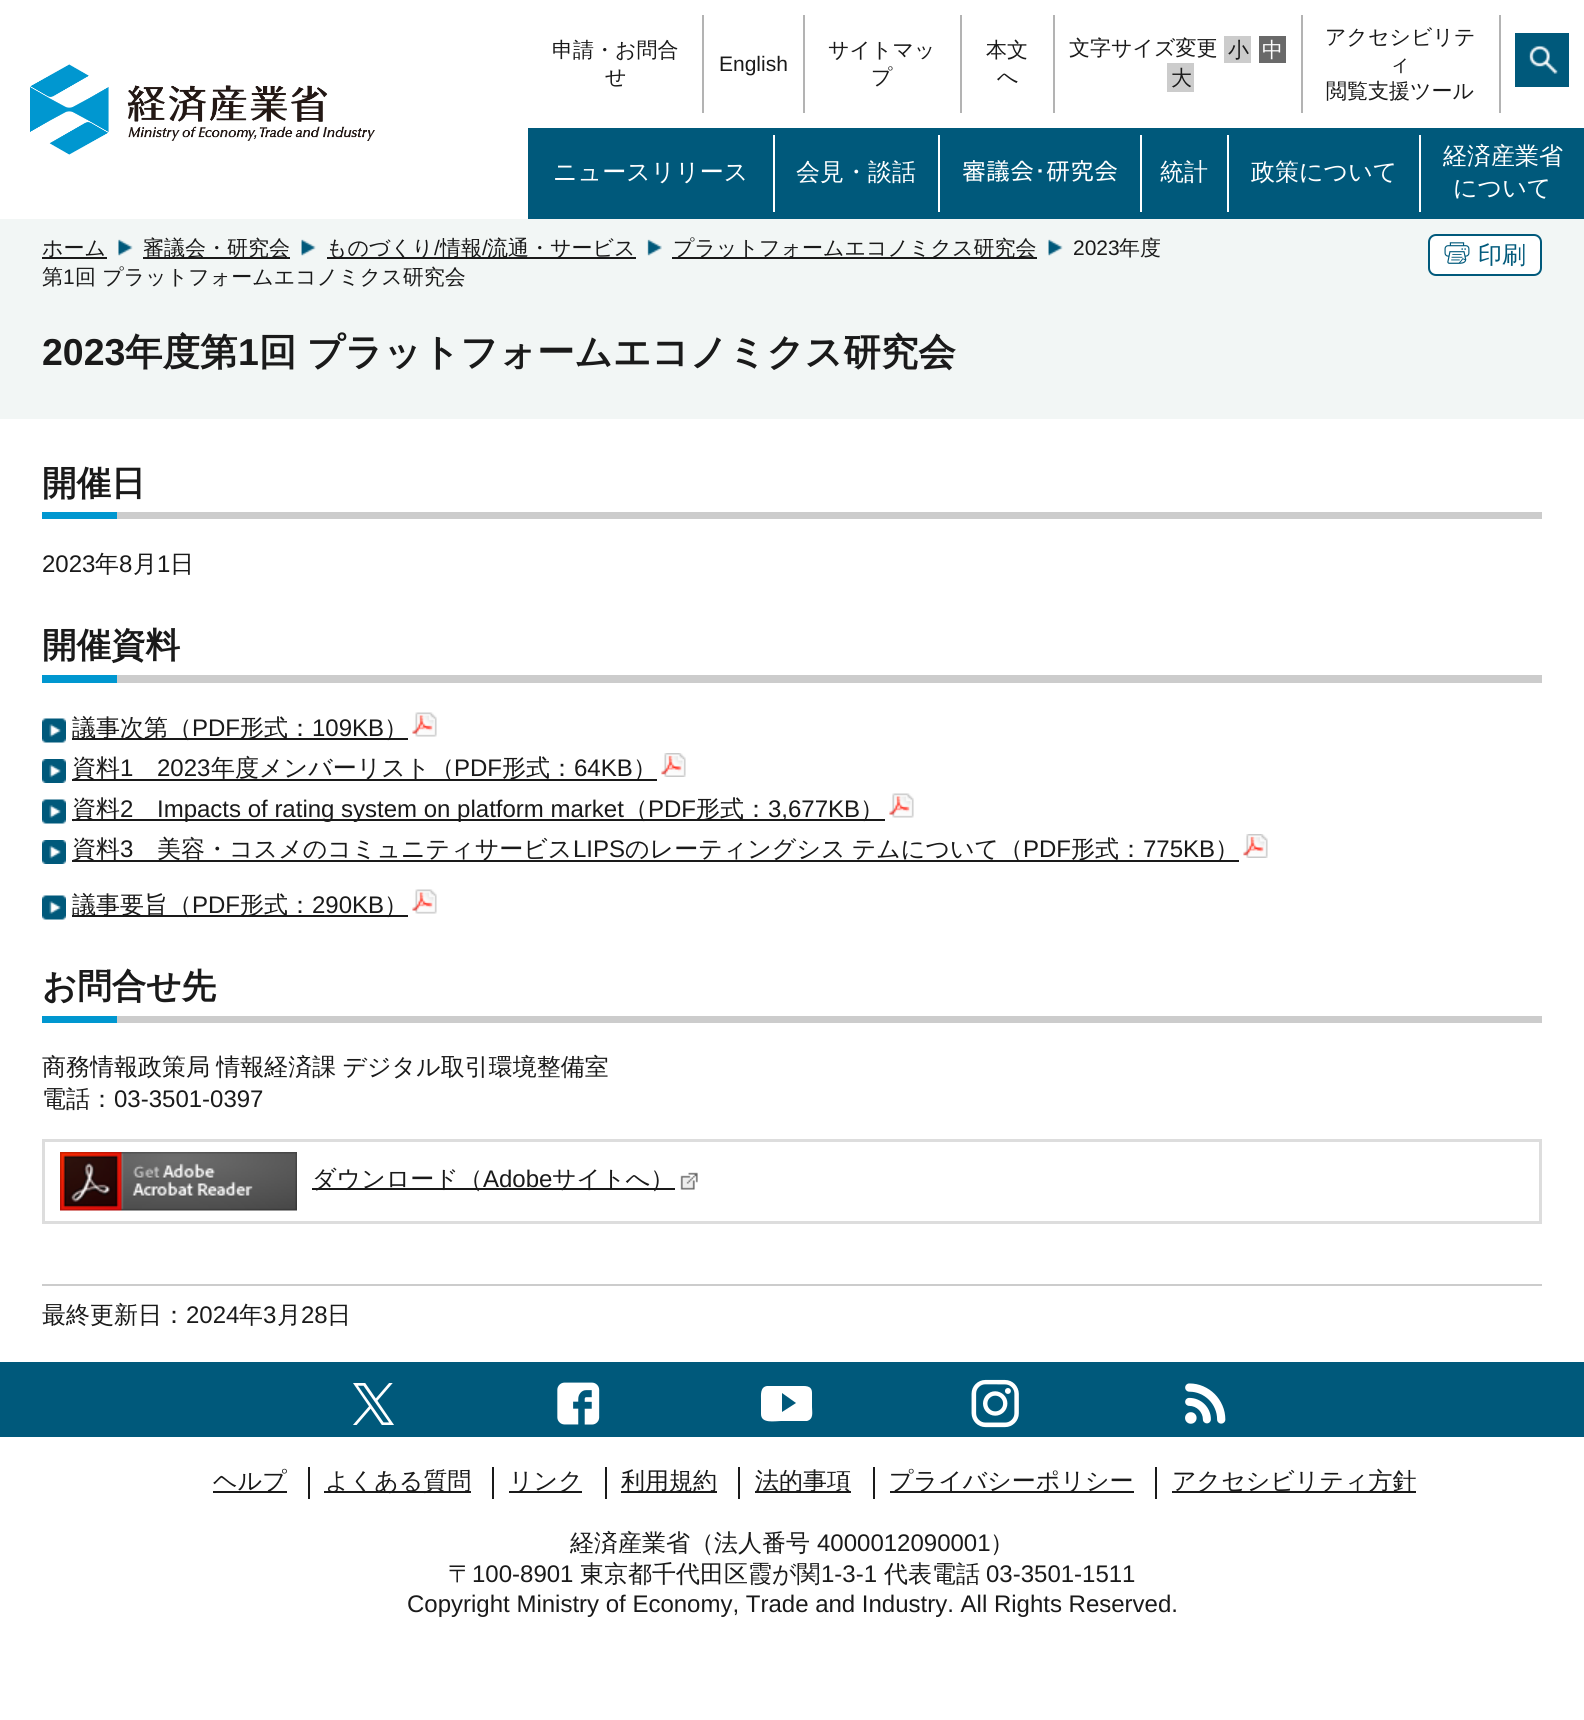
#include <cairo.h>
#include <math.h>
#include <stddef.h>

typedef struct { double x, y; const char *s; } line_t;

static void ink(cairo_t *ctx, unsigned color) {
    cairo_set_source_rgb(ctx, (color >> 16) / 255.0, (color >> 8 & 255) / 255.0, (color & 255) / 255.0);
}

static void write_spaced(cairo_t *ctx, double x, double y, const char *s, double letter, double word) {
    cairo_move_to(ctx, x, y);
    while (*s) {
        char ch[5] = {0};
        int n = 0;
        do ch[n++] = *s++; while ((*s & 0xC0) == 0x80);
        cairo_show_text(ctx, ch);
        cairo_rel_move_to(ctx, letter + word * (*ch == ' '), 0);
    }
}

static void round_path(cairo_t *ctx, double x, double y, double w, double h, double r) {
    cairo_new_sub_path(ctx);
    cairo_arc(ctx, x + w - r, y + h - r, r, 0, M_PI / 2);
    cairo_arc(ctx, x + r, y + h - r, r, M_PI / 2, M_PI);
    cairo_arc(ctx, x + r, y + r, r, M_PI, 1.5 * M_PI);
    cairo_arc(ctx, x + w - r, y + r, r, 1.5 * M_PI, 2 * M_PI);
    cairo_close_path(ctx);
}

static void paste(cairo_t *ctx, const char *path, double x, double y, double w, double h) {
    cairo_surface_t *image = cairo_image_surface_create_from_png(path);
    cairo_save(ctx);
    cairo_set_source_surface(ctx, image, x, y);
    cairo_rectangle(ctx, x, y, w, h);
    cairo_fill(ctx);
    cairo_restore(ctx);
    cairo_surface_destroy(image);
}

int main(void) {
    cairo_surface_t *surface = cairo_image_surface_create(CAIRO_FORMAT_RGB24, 1584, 1720);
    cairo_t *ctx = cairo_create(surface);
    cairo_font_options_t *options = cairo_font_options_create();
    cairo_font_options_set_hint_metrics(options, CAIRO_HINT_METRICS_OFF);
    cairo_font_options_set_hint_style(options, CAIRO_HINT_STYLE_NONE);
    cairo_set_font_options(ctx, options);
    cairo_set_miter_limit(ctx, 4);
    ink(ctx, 0xFFFFFF);
    cairo_paint(ctx);
    paste(ctx, "media/1.png", 30, 64, 345, 91);
    ink(ctx, 0xB3B3B3);
    cairo_rectangle(ctx, 702, 15, 2, 98);
    cairo_fill(ctx);
    cairo_select_font_face(ctx, "WenQuanYi Zen Hei Medium", CAIRO_FONT_SLANT_NORMAL, CAIRO_FONT_WEIGHT_NORMAL);
    cairo_set_font_size(ctx, 21);
    ink(ctx, 0x1A1A1A);
    cairo_move_to(ctx, 552, 57);
    cairo_show_text(ctx, "申請・お問合");
    cairo_move_to(ctx, 605, 84);
    cairo_show_text(ctx, "せ");
    ink(ctx, 0xB3B3B3);
    cairo_rectangle(ctx, 803, 15, 2, 98);
    cairo_fill(ctx);
    cairo_select_font_face(ctx, "Liberation Sans", CAIRO_FONT_SLANT_NORMAL, CAIRO_FONT_WEIGHT_NORMAL);
    ink(ctx, 0x1A1A1A);
    cairo_move_to(ctx, 719, 71);
    cairo_show_text(ctx, "English");
    ink(ctx, 0xB3B3B3);
    cairo_rectangle(ctx, 960, 15, 2, 98);
    cairo_fill(ctx);
    cairo_select_font_face(ctx, "WenQuanYi Zen Hei Medium", CAIRO_FONT_SLANT_NORMAL, CAIRO_FONT_WEIGHT_NORMAL);
    ink(ctx, 0x1A1A1A);
    cairo_move_to(ctx, 828, 57);
    cairo_show_text(ctx, "サイトマッ");
    cairo_move_to(ctx, 871, 84);
    cairo_show_text(ctx, "プ");
    ink(ctx, 0xB3B3B3);
    cairo_rectangle(ctx, 1053, 15, 2, 98);
    cairo_fill(ctx);
    ink(ctx, 0x1A1A1A);
    cairo_move_to(ctx, 986, 57);
    cairo_show_text(ctx, "本文");
    cairo_move_to(ctx, 997, 84);
    cairo_show_text(ctx, "へ");
    ink(ctx, 0xB3B3B3);
    cairo_rectangle(ctx, 1301, 15, 2, 98);
    cairo_fill(ctx);
    ink(ctx, 0x1A1A1A);
    cairo_move_to(ctx, 1069, 55);
    cairo_show_text(ctx, "文字サイズ変更");
    ink(ctx, 0xCCCCCC);
    cairo_rectangle(ctx, 1224, 36, 27, 27);
    cairo_fill(ctx);
    ink(ctx, 0x1A1A1A);
    cairo_move_to(ctx, 1228, 57);
    cairo_show_text(ctx, "小");
    ink(ctx, 0x696969);
    cairo_rectangle(ctx, 1259, 36, 27, 27);
    cairo_fill(ctx);
    ink(ctx, 0xFFFFFF);
    cairo_move_to(ctx, 1262, 57);
    cairo_show_text(ctx, "中");
    ink(ctx, 0xCCCCCC);
    cairo_rectangle(ctx, 1167, 63, 27, 29);
    cairo_fill(ctx);
    ink(ctx, 0x1A1A1A);
    cairo_move_to(ctx, 1171, 85);
    cairo_show_text(ctx, "大");
    ink(ctx, 0xB3B3B3);
    cairo_rectangle(ctx, 1499, 15, 2, 98);
    cairo_fill(ctx);
    ink(ctx, 0x1A1A1A);
    {
        static const line_t items[] = {
            {1325, 44, "アクセシビリテ"},
            {1389, 71, "ィ"},
            {1326, 98, "閲覧支援ツール"},
        };
        for (size_t i = 0; i < sizeof items / sizeof *items; i++) {
            cairo_move_to(ctx, items[i].x, items[i].y);
            cairo_show_text(ctx, items[i].s);
        }
    }
    paste(ctx, "media/2.png", 1515, 33, 54, 54);
    ink(ctx, 0x00597B);
    cairo_rectangle(ctx, 528, 128, 1056, 91);
    cairo_fill(ctx);
    ink(ctx, 0xFFFFFF);
    cairo_rectangle(ctx, 773, 135, 2, 77);
    cairo_fill(ctx);
    cairo_set_font_size(ctx, 24);
    cairo_move_to(ctx, 553, 180);
    cairo_show_text(ctx, "ニュースリリース");
    cairo_rectangle(ctx, 938, 135, 2, 77);
    cairo_fill(ctx);
    cairo_move_to(ctx, 796, 180);
    cairo_show_text(ctx, "会見・談話");
    cairo_rectangle(ctx, 1140, 135, 2, 77);
    cairo_fill(ctx);
    cairo_select_font_face(ctx, "IPAPGothic", CAIRO_FONT_SLANT_NORMAL, CAIRO_FONT_WEIGHT_NORMAL);
    cairo_move_to(ctx, 962, 180);
    cairo_show_text(ctx, "審議会･研究会");
    cairo_rectangle(ctx, 1227, 135, 2, 77);
    cairo_fill(ctx);
    cairo_select_font_face(ctx, "WenQuanYi Zen Hei Medium", CAIRO_FONT_SLANT_NORMAL, CAIRO_FONT_WEIGHT_NORMAL);
    cairo_move_to(ctx, 1160, 180);
    cairo_show_text(ctx, "統計");
    cairo_rectangle(ctx, 1419, 135, 2, 77);
    cairo_fill(ctx);
    {
        static const line_t items[] = {
            {1251, 180, "政策について"},
            {1443, 164, "経済産業省"},
            {1453, 196, "について"},
        };
        for (size_t i = 0; i < sizeof items / sizeof *items; i++) {
            cairo_move_to(ctx, items[i].x, items[i].y);
            cairo_show_text(ctx, items[i].s);
        }
    }
    ink(ctx, 0xF2F6F5);
    cairo_rectangle(ctx, 0, 219, 1584, 200);
    cairo_fill(ctx);
    ink(ctx, 0x1A1A1A);
    cairo_rectangle(ctx, 42, 257, 65, 2);
    cairo_fill(ctx);
    cairo_set_font_size(ctx, 21);
    cairo_move_to(ctx, 42, 255);
    cairo_show_text(ctx, "ホーム");
    paste(ctx, "media/3.png", 118, 239, 15, 17);
    cairo_rectangle(ctx, 143, 257, 147, 2);
    cairo_fill(ctx);
    cairo_move_to(ctx, 143, 255);
    cairo_show_text(ctx, "審議会・研究会");
    paste(ctx, "media/4.png", 301, 239, 15, 17);
    cairo_rectangle(ctx, 327, 257, 309, 2);
    cairo_fill(ctx);
    cairo_move_to(ctx, 326, 255);
    cairo_show_text(ctx, "ものづくり");
    cairo_select_font_face(ctx, "Liberation Sans", CAIRO_FONT_SLANT_NORMAL, CAIRO_FONT_WEIGHT_NORMAL);
    cairo_move_to(ctx, 434, 255);
    cairo_show_text(ctx, "/");
    cairo_select_font_face(ctx, "WenQuanYi Zen Hei Medium", CAIRO_FONT_SLANT_NORMAL, CAIRO_FONT_WEIGHT_NORMAL);
    cairo_move_to(ctx, 440, 255);
    cairo_show_text(ctx, "情報");
    cairo_select_font_face(ctx, "Liberation Sans", CAIRO_FONT_SLANT_NORMAL, CAIRO_FONT_WEIGHT_NORMAL);
    cairo_move_to(ctx, 482, 255);
    cairo_show_text(ctx, "/");
    cairo_select_font_face(ctx, "WenQuanYi Zen Hei Medium", CAIRO_FONT_SLANT_NORMAL, CAIRO_FONT_WEIGHT_NORMAL);
    cairo_move_to(ctx, 487, 255);
    cairo_show_text(ctx, "流通・サービス");
    paste(ctx, "media/5.png", 647, 239, 15, 17);
    cairo_rectangle(ctx, 672, 257, 365, 2);
    cairo_fill(ctx);
    cairo_move_to(ctx, 673, 255);
    cairo_show_text(ctx, "プラットフォームエコノミクス研究会");
    paste(ctx, "media/4.png", 1048, 239, 15, 17);
    cairo_select_font_face(ctx, "Liberation Sans", CAIRO_FONT_SLANT_NORMAL, CAIRO_FONT_WEIGHT_NORMAL);
    cairo_move_to(ctx, 1073, 255);
    cairo_show_text(ctx, "2023");
    cairo_select_font_face(ctx, "WenQuanYi Zen Hei Medium", CAIRO_FONT_SLANT_NORMAL, CAIRO_FONT_WEIGHT_NORMAL);
    cairo_move_to(ctx, 1119, 255);
    cairo_show_text(ctx, "年度");
    cairo_move_to(ctx, 42, 284);
    cairo_show_text(ctx, "第");
    cairo_select_font_face(ctx, "Liberation Sans", CAIRO_FONT_SLANT_NORMAL, CAIRO_FONT_WEIGHT_NORMAL);
    cairo_move_to(ctx, 63, 284);
    cairo_show_text(ctx, "1");
    cairo_select_font_face(ctx, "WenQuanYi Zen Hei Medium", CAIRO_FONT_SLANT_NORMAL, CAIRO_FONT_WEIGHT_NORMAL);
    cairo_move_to(ctx, 75, 284);
    cairo_show_text(ctx, "回 プラットフォームエコノミクス研究会");
    ink(ctx, 0xFFFFFF);
    round_path(ctx, 1429, 235, 112, 40, 7);
    cairo_fill_preserve(ctx);
    ink(ctx, 0x00597B);
    cairo_stroke(ctx);
    paste(ctx, "media/6.png", 1444, 242, 26, 22);
    cairo_set_font_size(ctx, 24);
    cairo_move_to(ctx, 1478, 263);
    cairo_show_text(ctx, "印刷");
    cairo_select_font_face(ctx, "Liberation Sans", CAIRO_FONT_SLANT_NORMAL, CAIRO_FONT_WEIGHT_BOLD);
    cairo_set_font_size(ctx, 37.5);
    ink(ctx, 0x1A1A1A);
    cairo_move_to(ctx, 42, 365);
    cairo_show_text(ctx, "2023");
    cairo_select_font_face(ctx, "WenQuanYi Zen Hei", CAIRO_FONT_SLANT_NORMAL, CAIRO_FONT_WEIGHT_BOLD);
    cairo_move_to(ctx, 125, 365);
    cairo_show_text(ctx, "年度第");
    cairo_select_font_face(ctx, "Liberation Sans", CAIRO_FONT_SLANT_NORMAL, CAIRO_FONT_WEIGHT_BOLD);
    cairo_move_to(ctx, 238, 365);
    cairo_show_text(ctx, "1");
    cairo_select_font_face(ctx, "WenQuanYi Zen Hei", CAIRO_FONT_SLANT_NORMAL, CAIRO_FONT_WEIGHT_BOLD);
    write_spaced(ctx, 259, 365, "回 プラットフォームエコノミクス研究会", 0, -1);
    ink(ctx, 0xCCCCCC);
    cairo_rectangle(ctx, 117, 512, 1425, 7);
    cairo_fill(ctx);
    cairo_set_font_size(ctx, 34.5);
    ink(ctx, 0x1A1A1A);
    cairo_move_to(ctx, 42, 495);
    cairo_show_text(ctx, "開催日");
    ink(ctx, 0x0097D0);
    cairo_rectangle(ctx, 42, 512, 75, 7);
    cairo_fill(ctx);
    cairo_select_font_face(ctx, "Liberation Sans", CAIRO_FONT_SLANT_NORMAL, CAIRO_FONT_WEIGHT_NORMAL);
    cairo_set_font_size(ctx, 24);
    ink(ctx, 0x1A1A1A);
    cairo_move_to(ctx, 42, 572);
    cairo_show_text(ctx, "2023");
    cairo_select_font_face(ctx, "WenQuanYi Zen Hei Medium", CAIRO_FONT_SLANT_NORMAL, CAIRO_FONT_WEIGHT_NORMAL);
    cairo_move_to(ctx, 95, 572);
    cairo_show_text(ctx, "年");
    cairo_select_font_face(ctx, "Liberation Sans", CAIRO_FONT_SLANT_NORMAL, CAIRO_FONT_WEIGHT_NORMAL);
    cairo_move_to(ctx, 119, 572);
    cairo_show_text(ctx, "8");
    cairo_select_font_face(ctx, "WenQuanYi Zen Hei Medium", CAIRO_FONT_SLANT_NORMAL, CAIRO_FONT_WEIGHT_NORMAL);
    cairo_move_to(ctx, 133, 572);
    cairo_show_text(ctx, "月");
    cairo_select_font_face(ctx, "Liberation Sans", CAIRO_FONT_SLANT_NORMAL, CAIRO_FONT_WEIGHT_NORMAL);
    cairo_move_to(ctx, 157, 572);
    cairo_show_text(ctx, "1");
    cairo_select_font_face(ctx, "WenQuanYi Zen Hei Medium", CAIRO_FONT_SLANT_NORMAL, CAIRO_FONT_WEIGHT_NORMAL);
    cairo_move_to(ctx, 170, 572);
    cairo_show_text(ctx, "日");
    ink(ctx, 0xCCCCCC);
    cairo_rectangle(ctx, 117, 675, 1425, 8);
    cairo_fill(ctx);
    cairo_select_font_face(ctx, "WenQuanYi Zen Hei", CAIRO_FONT_SLANT_NORMAL, CAIRO_FONT_WEIGHT_BOLD);
    cairo_set_font_size(ctx, 34.5);
    ink(ctx, 0x1A1A1A);
    cairo_move_to(ctx, 42, 657);
    cairo_show_text(ctx, "開催資料");
    ink(ctx, 0x0097D0);
    cairo_rectangle(ctx, 42, 675, 75, 8);
    cairo_fill(ctx);
    paste(ctx, "media/7.png", 42, 718, 24, 25);
    ink(ctx, 0x1A1A1A);
    cairo_rectangle(ctx, 72, 738, 336, 2);
    cairo_fill(ctx);
    cairo_select_font_face(ctx, "WenQuanYi Zen Hei Medium", CAIRO_FONT_SLANT_NORMAL, CAIRO_FONT_WEIGHT_NORMAL);
    cairo_set_font_size(ctx, 24);
    cairo_move_to(ctx, 72, 736);
    cairo_show_text(ctx, "議事次第（");
    cairo_select_font_face(ctx, "Liberation Sans", CAIRO_FONT_SLANT_NORMAL, CAIRO_FONT_WEIGHT_NORMAL);
    cairo_move_to(ctx, 192, 736);
    cairo_show_text(ctx, "PDF");
    cairo_select_font_face(ctx, "WenQuanYi Zen Hei Medium", CAIRO_FONT_SLANT_NORMAL, CAIRO_FONT_WEIGHT_NORMAL);
    cairo_move_to(ctx, 240, 736);
    cairo_show_text(ctx, "形式：");
    cairo_select_font_face(ctx, "Liberation Sans", CAIRO_FONT_SLANT_NORMAL, CAIRO_FONT_WEIGHT_NORMAL);
    cairo_move_to(ctx, 312, 736);
    cairo_show_text(ctx, "109KB");
    cairo_select_font_face(ctx, "WenQuanYi Zen Hei Medium", CAIRO_FONT_SLANT_NORMAL, CAIRO_FONT_WEIGHT_NORMAL);
    cairo_move_to(ctx, 384, 736);
    cairo_show_text(ctx, "）");
    paste(ctx, "media/8.png", 412, 712, 25, 25);
    paste(ctx, "media/9.png", 42, 759, 24, 24);
    cairo_rectangle(ctx, 72, 779, 585, 2);
    cairo_fill(ctx);
    cairo_move_to(ctx, 72, 776);
    cairo_show_text(ctx, "資料");
    cairo_select_font_face(ctx, "Liberation Sans", CAIRO_FONT_SLANT_NORMAL, CAIRO_FONT_WEIGHT_NORMAL);
    cairo_move_to(ctx, 120, 776);
    cairo_show_text(ctx, "1");
    cairo_move_to(ctx, 157, 776);
    cairo_show_text(ctx, "2023");
    cairo_select_font_face(ctx, "WenQuanYi Zen Hei Medium", CAIRO_FONT_SLANT_NORMAL, CAIRO_FONT_WEIGHT_NORMAL);
    cairo_move_to(ctx, 211, 776);
    cairo_show_text(ctx, "年度メンバーリスト（");
    cairo_select_font_face(ctx, "Liberation Sans", CAIRO_FONT_SLANT_NORMAL, CAIRO_FONT_WEIGHT_NORMAL);
    cairo_move_to(ctx, 454, 776);
    cairo_show_text(ctx, "PDF");
    cairo_select_font_face(ctx, "WenQuanYi Zen Hei Medium", CAIRO_FONT_SLANT_NORMAL, CAIRO_FONT_WEIGHT_NORMAL);
    cairo_move_to(ctx, 502, 776);
    cairo_show_text(ctx, "形式：");
    cairo_select_font_face(ctx, "Liberation Sans", CAIRO_FONT_SLANT_NORMAL, CAIRO_FONT_WEIGHT_NORMAL);
    cairo_move_to(ctx, 574, 776);
    cairo_show_text(ctx, "64KB");
    cairo_select_font_face(ctx, "WenQuanYi Zen Hei Medium", CAIRO_FONT_SLANT_NORMAL, CAIRO_FONT_WEIGHT_NORMAL);
    cairo_move_to(ctx, 633, 776);
    cairo_show_text(ctx, "）");
    paste(ctx, "media/10.png", 661, 753, 25, 24);
    paste(ctx, "media/7.png", 42, 799, 24, 25);
    cairo_rectangle(ctx, 72, 819, 813, 2);
    cairo_fill(ctx);
    cairo_move_to(ctx, 72, 817);
    cairo_show_text(ctx, "資料");
    cairo_select_font_face(ctx, "Liberation Sans", CAIRO_FONT_SLANT_NORMAL, CAIRO_FONT_WEIGHT_NORMAL);
    cairo_move_to(ctx, 120, 817);
    cairo_show_text(ctx, "2");
    cairo_move_to(ctx, 157, 817);
    cairo_show_text(ctx, "Impacts of rating system on platform market");
    cairo_select_font_face(ctx, "WenQuanYi Zen Hei Medium", CAIRO_FONT_SLANT_NORMAL, CAIRO_FONT_WEIGHT_NORMAL);
    cairo_move_to(ctx, 624, 817);
    cairo_show_text(ctx, "（");
    cairo_select_font_face(ctx, "Liberation Sans", CAIRO_FONT_SLANT_NORMAL, CAIRO_FONT_WEIGHT_NORMAL);
    cairo_move_to(ctx, 648, 817);
    cairo_show_text(ctx, "PDF");
    cairo_select_font_face(ctx, "WenQuanYi Zen Hei Medium", CAIRO_FONT_SLANT_NORMAL, CAIRO_FONT_WEIGHT_NORMAL);
    cairo_move_to(ctx, 696, 817);
    cairo_show_text(ctx, "形式：");
    cairo_select_font_face(ctx, "Liberation Sans", CAIRO_FONT_SLANT_NORMAL, CAIRO_FONT_WEIGHT_NORMAL);
    cairo_move_to(ctx, 768, 817);
    cairo_show_text(ctx, "3,677KB");
    cairo_select_font_face(ctx, "WenQuanYi Zen Hei Medium", CAIRO_FONT_SLANT_NORMAL, CAIRO_FONT_WEIGHT_NORMAL);
    cairo_move_to(ctx, 860, 817);
    cairo_show_text(ctx, "）");
    paste(ctx, "media/11.png", 889, 793, 25, 25);
    paste(ctx, "media/9.png", 42, 840, 24, 24);
    cairo_rectangle(ctx, 72, 860, 1167, 2);
    cairo_fill(ctx);
    cairo_move_to(ctx, 72, 857);
    cairo_show_text(ctx, "資料");
    cairo_select_font_face(ctx, "Liberation Sans", CAIRO_FONT_SLANT_NORMAL, CAIRO_FONT_WEIGHT_NORMAL);
    cairo_move_to(ctx, 120, 857);
    cairo_show_text(ctx, "3");
    cairo_select_font_face(ctx, "WenQuanYi Zen Hei Medium", CAIRO_FONT_SLANT_NORMAL, CAIRO_FONT_WEIGHT_NORMAL);
    cairo_move_to(ctx, 157, 857);
    cairo_show_text(ctx, "美容・コスメのコミュニティサービス");
    cairo_select_font_face(ctx, "Liberation Sans", CAIRO_FONT_SLANT_NORMAL, CAIRO_FONT_WEIGHT_NORMAL);
    cairo_move_to(ctx, 573, 857);
    cairo_show_text(ctx, "LIPS");
    cairo_select_font_face(ctx, "WenQuanYi Zen Hei Medium", CAIRO_FONT_SLANT_NORMAL, CAIRO_FONT_WEIGHT_NORMAL);
    write_spaced(ctx, 625, 857, "のレーティングシス テムについて（", 0, -1);
    cairo_select_font_face(ctx, "Liberation Sans", CAIRO_FONT_SLANT_NORMAL, CAIRO_FONT_WEIGHT_NORMAL);
    cairo_move_to(ctx, 1023, 857);
    cairo_show_text(ctx, "PDF");
    cairo_select_font_face(ctx, "WenQuanYi Zen Hei Medium", CAIRO_FONT_SLANT_NORMAL, CAIRO_FONT_WEIGHT_NORMAL);
    cairo_move_to(ctx, 1071, 857);
    cairo_show_text(ctx, "形式：");
    cairo_select_font_face(ctx, "Liberation Sans", CAIRO_FONT_SLANT_NORMAL, CAIRO_FONT_WEIGHT_NORMAL);
    cairo_move_to(ctx, 1143, 857);
    cairo_show_text(ctx, "775KB");
    cairo_select_font_face(ctx, "WenQuanYi Zen Hei Medium", CAIRO_FONT_SLANT_NORMAL, CAIRO_FONT_WEIGHT_NORMAL);
    cairo_move_to(ctx, 1215, 857);
    cairo_show_text(ctx, "）");
    paste(ctx, "media/12.png", 1243, 834, 25, 24);
    paste(ctx, "media/7.png", 42, 895, 24, 25);
    cairo_rectangle(ctx, 72, 915, 336, 2);
    cairo_fill(ctx);
    cairo_move_to(ctx, 72, 913);
    cairo_show_text(ctx, "議事要旨（");
    cairo_select_font_face(ctx, "Liberation Sans", CAIRO_FONT_SLANT_NORMAL, CAIRO_FONT_WEIGHT_NORMAL);
    cairo_move_to(ctx, 192, 913);
    cairo_show_text(ctx, "PDF");
    cairo_select_font_face(ctx, "WenQuanYi Zen Hei Medium", CAIRO_FONT_SLANT_NORMAL, CAIRO_FONT_WEIGHT_NORMAL);
    cairo_move_to(ctx, 240, 913);
    cairo_show_text(ctx, "形式：");
    cairo_select_font_face(ctx, "Liberation Sans", CAIRO_FONT_SLANT_NORMAL, CAIRO_FONT_WEIGHT_NORMAL);
    cairo_move_to(ctx, 312, 913);
    cairo_show_text(ctx, "290KB");
    cairo_select_font_face(ctx, "WenQuanYi Zen Hei Medium", CAIRO_FONT_SLANT_NORMAL, CAIRO_FONT_WEIGHT_NORMAL);
    cairo_move_to(ctx, 384, 913);
    cairo_show_text(ctx, "）");
    paste(ctx, "media/8.png", 412, 889, 25, 25);
    ink(ctx, 0xCCCCCC);
    cairo_rectangle(ctx, 117, 1016, 1425, 7);
    cairo_fill(ctx);
    cairo_select_font_face(ctx, "WenQuanYi Zen Hei", CAIRO_FONT_SLANT_NORMAL, CAIRO_FONT_WEIGHT_BOLD);
    cairo_set_font_size(ctx, 34.5);
    ink(ctx, 0x1A1A1A);
    cairo_move_to(ctx, 42, 998);
    cairo_show_text(ctx, "お問合せ先");
    ink(ctx, 0x0097D0);
    cairo_rectangle(ctx, 42, 1016, 75, 7);
    cairo_fill(ctx);
    cairo_select_font_face(ctx, "WenQuanYi Zen Hei Medium", CAIRO_FONT_SLANT_NORMAL, CAIRO_FONT_WEIGHT_NORMAL);
    cairo_set_font_size(ctx, 24);
    ink(ctx, 0x1A1A1A);
    write_spaced(ctx, 42, 1075, "商務情報政策局 情報経済課 デジタル取引環境整備室", 0, -1);
    cairo_move_to(ctx, 42, 1107);
    cairo_show_text(ctx, "電話：");
    cairo_select_font_face(ctx, "Liberation Sans", CAIRO_FONT_SLANT_NORMAL, CAIRO_FONT_WEIGHT_NORMAL);
    cairo_move_to(ctx, 114, 1107);
    cairo_show_text(ctx, "03-3501-0397");
    cairo_rectangle(ctx, 43.5, 1140.5, 1497, 82);
    ink(ctx, 0xDDDDDD);
    cairo_set_line_width(ctx, 3);
    cairo_stroke(ctx);
    paste(ctx, "media/13.png", 60, 1152, 237, 59);
    ink(ctx, 0x1A1A1A);
    cairo_rectangle(ctx, 312, 1188, 363, 2);
    cairo_fill(ctx);
    cairo_select_font_face(ctx, "WenQuanYi Zen Hei Medium", CAIRO_FONT_SLANT_NORMAL, CAIRO_FONT_WEIGHT_NORMAL);
    cairo_move_to(ctx, 312, 1187);
    cairo_show_text(ctx, "ダウンロード（");
    cairo_select_font_face(ctx, "Liberation Sans", CAIRO_FONT_SLANT_NORMAL, CAIRO_FONT_WEIGHT_NORMAL);
    cairo_move_to(ctx, 483, 1187);
    cairo_show_text(ctx, "Adobe");
    cairo_select_font_face(ctx, "WenQuanYi Zen Hei Medium", CAIRO_FONT_SLANT_NORMAL, CAIRO_FONT_WEIGHT_NORMAL);
    cairo_move_to(ctx, 552, 1187);
    cairo_show_text(ctx, "サイトへ）");
    paste(ctx, "media/14.png", 680, 1172, 18, 18);
    ink(ctx, 0xCCCCCC);
    cairo_rectangle(ctx, 42, 1284, 1500, 2);
    cairo_fill(ctx);
    ink(ctx, 0x1A1A1A);
    cairo_move_to(ctx, 42, 1323);
    cairo_show_text(ctx, "最終更新日：");
    cairo_select_font_face(ctx, "Liberation Sans", CAIRO_FONT_SLANT_NORMAL, CAIRO_FONT_WEIGHT_NORMAL);
    cairo_move_to(ctx, 186, 1323);
    cairo_show_text(ctx, "2024");
    cairo_select_font_face(ctx, "WenQuanYi Zen Hei Medium", CAIRO_FONT_SLANT_NORMAL, CAIRO_FONT_WEIGHT_NORMAL);
    cairo_move_to(ctx, 239, 1323);
    cairo_show_text(ctx, "年");
    cairo_select_font_face(ctx, "Liberation Sans", CAIRO_FONT_SLANT_NORMAL, CAIRO_FONT_WEIGHT_NORMAL);
    cairo_move_to(ctx, 263, 1323);
    cairo_show_text(ctx, "3");
    cairo_select_font_face(ctx, "WenQuanYi Zen Hei Medium", CAIRO_FONT_SLANT_NORMAL, CAIRO_FONT_WEIGHT_NORMAL);
    cairo_move_to(ctx, 277, 1323);
    cairo_show_text(ctx, "月");
    cairo_select_font_face(ctx, "Liberation Sans", CAIRO_FONT_SLANT_NORMAL, CAIRO_FONT_WEIGHT_NORMAL);
    cairo_move_to(ctx, 301, 1323);
    cairo_show_text(ctx, "28");
    cairo_select_font_face(ctx, "WenQuanYi Zen Hei Medium", CAIRO_FONT_SLANT_NORMAL, CAIRO_FONT_WEIGHT_NORMAL);
    cairo_move_to(ctx, 327, 1323);
    cairo_show_text(ctx, "日");
    ink(ctx, 0x00597B);
    cairo_rectangle(ctx, 0, 1362, 1584, 75);
    cairo_fill(ctx);
    paste(ctx, "media/15.png", 353, 1383, 41, 42);
    paste(ctx, "media/16.png", 557, 1382, 43, 43);
    ink(ctx, 0xFFFFFF);
    cairo_new_path(ctx);
    cairo_move_to(ctx, 812, 1393);
    cairo_curve_to(ctx, 812, 1385, 805, 1386, 799, 1386);
    cairo_line_to(ctx, 767, 1386);
    cairo_curve_to(ctx, 760, 1387, 761, 1395, 761, 1400);
    cairo_line_to(ctx, 761, 1414);
    cairo_curve_to(ctx, 761, 1424, 775, 1421, 781, 1421);
    cairo_line_to(ctx, 807, 1421);
    cairo_curve_to(ctx, 814, 1419, 812, 1412, 812, 1407);
    cairo_close_path(ctx);
    cairo_move_to(ctx, 782, 1412);
    cairo_line_to(ctx, 782, 1393);
    cairo_line_to(ctx, 796, 1403);
    cairo_close_path(ctx);
    cairo_fill(ctx);
    paste(ctx, "media/17.png", 971, 1379, 48, 49);
    paste(ctx, "media/18.png", 1185, 1383, 41, 41);
    ink(ctx, 0x1A1A1A);
    cairo_rectangle(ctx, 213, 1491, 74, 2);
    cairo_fill(ctx);
    cairo_move_to(ctx, 213, 1489);
    cairo_show_text(ctx, "ヘルプ");
    cairo_rectangle(ctx, 308, 1467, 2, 32);
    cairo_fill(ctx);
    cairo_rectangle(ctx, 324, 1491, 147, 2);
    cairo_fill(ctx);
    cairo_move_to(ctx, 325, 1489);
    cairo_show_text(ctx, "よくある質問");
    cairo_rectangle(ctx, 492, 1467, 2, 32);
    cairo_fill(ctx);
    cairo_rectangle(ctx, 509, 1491, 73, 2);
    cairo_fill(ctx);
    cairo_move_to(ctx, 509, 1489);
    cairo_show_text(ctx, "リンク");
    cairo_rectangle(ctx, 605, 1467, 2, 32);
    cairo_fill(ctx);
    cairo_rectangle(ctx, 621, 1491, 96, 2);
    cairo_fill(ctx);
    cairo_move_to(ctx, 621, 1489);
    cairo_show_text(ctx, "利用規約");
    cairo_rectangle(ctx, 738, 1467, 2, 32);
    cairo_fill(ctx);
    cairo_rectangle(ctx, 755, 1491, 96, 2);
    cairo_fill(ctx);
    cairo_move_to(ctx, 755, 1489);
    cairo_show_text(ctx, "法的事項");
    cairo_rectangle(ctx, 873, 1467, 2, 32);
    cairo_fill(ctx);
    cairo_rectangle(ctx, 890, 1491, 244, 2);
    cairo_fill(ctx);
    cairo_move_to(ctx, 889, 1489);
    cairo_show_text(ctx, "プライバシーポリシー");
    cairo_rectangle(ctx, 1155, 1467, 2, 32);
    cairo_fill(ctx);
    cairo_rectangle(ctx, 1172, 1491, 244, 2);
    cairo_fill(ctx);
    cairo_move_to(ctx, 1172, 1489);
    cairo_show_text(ctx, "アクセシビリティ方針");
    cairo_move_to(ctx, 570, 1551);
    cairo_show_text(ctx, "経済産業省（法人番号");
    cairo_select_font_face(ctx, "Liberation Sans", CAIRO_FONT_SLANT_NORMAL, CAIRO_FONT_WEIGHT_NORMAL);
    cairo_move_to(ctx, 817, 1551);
    cairo_show_text(ctx, "4000012090001");
    cairo_select_font_face(ctx, "WenQuanYi Zen Hei Medium", CAIRO_FONT_SLANT_NORMAL, CAIRO_FONT_WEIGHT_NORMAL);
    cairo_move_to(ctx, 990, 1551);
    cairo_show_text(ctx, "）");
    cairo_move_to(ctx, 448, 1582);
    cairo_show_text(ctx, "〒");
    cairo_select_font_face(ctx, "Liberation Sans", CAIRO_FONT_SLANT_NORMAL, CAIRO_FONT_WEIGHT_NORMAL);
    cairo_move_to(ctx, 472, 1582);
    cairo_show_text(ctx, "100-8901");
    cairo_select_font_face(ctx, "WenQuanYi Zen Hei Medium", CAIRO_FONT_SLANT_NORMAL, CAIRO_FONT_WEIGHT_NORMAL);
    cairo_move_to(ctx, 580, 1582);
    cairo_show_text(ctx, "東京都千代田区霞が関");
    cairo_select_font_face(ctx, "Liberation Sans", CAIRO_FONT_SLANT_NORMAL, CAIRO_FONT_WEIGHT_NORMAL);
    cairo_move_to(ctx, 821, 1582);
    cairo_show_text(ctx, "1-3-1");
    cairo_select_font_face(ctx, "WenQuanYi Zen Hei Medium", CAIRO_FONT_SLANT_NORMAL, CAIRO_FONT_WEIGHT_NORMAL);
    cairo_move_to(ctx, 884, 1582);
    cairo_show_text(ctx, "代表電話");
    cairo_select_font_face(ctx, "Liberation Sans", CAIRO_FONT_SLANT_NORMAL, CAIRO_FONT_WEIGHT_NORMAL);
    cairo_move_to(ctx, 986, 1582);
    cairo_show_text(ctx, "03-3501-1511");
    cairo_move_to(ctx, 407, 1612);
    cairo_show_text(ctx, "Copyright Ministry of Economy, Trade and Industry. All Rights Reserved.");
    cairo_surface_write_to_png(surface, "image.png");
    cairo_font_options_destroy(options);
    cairo_destroy(ctx);
    cairo_surface_destroy(surface);
    return 0;
}
